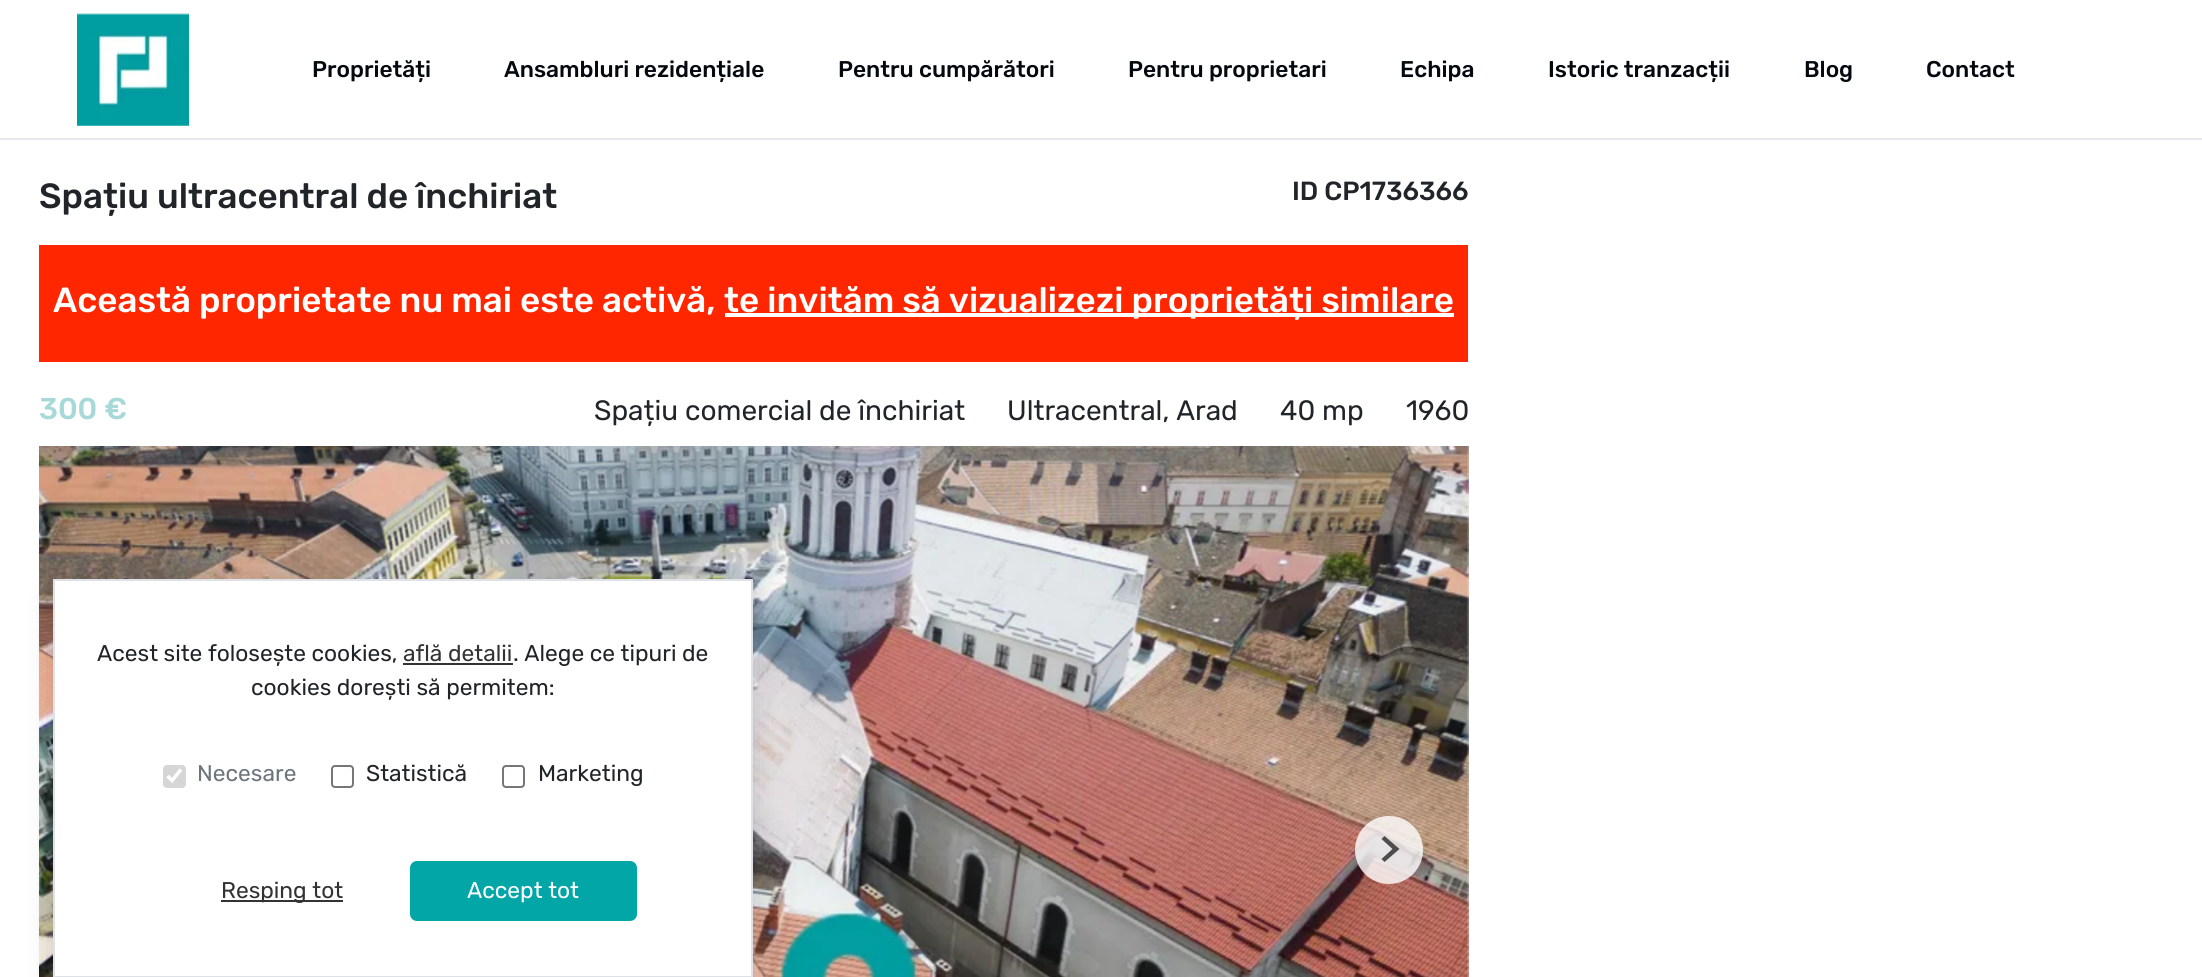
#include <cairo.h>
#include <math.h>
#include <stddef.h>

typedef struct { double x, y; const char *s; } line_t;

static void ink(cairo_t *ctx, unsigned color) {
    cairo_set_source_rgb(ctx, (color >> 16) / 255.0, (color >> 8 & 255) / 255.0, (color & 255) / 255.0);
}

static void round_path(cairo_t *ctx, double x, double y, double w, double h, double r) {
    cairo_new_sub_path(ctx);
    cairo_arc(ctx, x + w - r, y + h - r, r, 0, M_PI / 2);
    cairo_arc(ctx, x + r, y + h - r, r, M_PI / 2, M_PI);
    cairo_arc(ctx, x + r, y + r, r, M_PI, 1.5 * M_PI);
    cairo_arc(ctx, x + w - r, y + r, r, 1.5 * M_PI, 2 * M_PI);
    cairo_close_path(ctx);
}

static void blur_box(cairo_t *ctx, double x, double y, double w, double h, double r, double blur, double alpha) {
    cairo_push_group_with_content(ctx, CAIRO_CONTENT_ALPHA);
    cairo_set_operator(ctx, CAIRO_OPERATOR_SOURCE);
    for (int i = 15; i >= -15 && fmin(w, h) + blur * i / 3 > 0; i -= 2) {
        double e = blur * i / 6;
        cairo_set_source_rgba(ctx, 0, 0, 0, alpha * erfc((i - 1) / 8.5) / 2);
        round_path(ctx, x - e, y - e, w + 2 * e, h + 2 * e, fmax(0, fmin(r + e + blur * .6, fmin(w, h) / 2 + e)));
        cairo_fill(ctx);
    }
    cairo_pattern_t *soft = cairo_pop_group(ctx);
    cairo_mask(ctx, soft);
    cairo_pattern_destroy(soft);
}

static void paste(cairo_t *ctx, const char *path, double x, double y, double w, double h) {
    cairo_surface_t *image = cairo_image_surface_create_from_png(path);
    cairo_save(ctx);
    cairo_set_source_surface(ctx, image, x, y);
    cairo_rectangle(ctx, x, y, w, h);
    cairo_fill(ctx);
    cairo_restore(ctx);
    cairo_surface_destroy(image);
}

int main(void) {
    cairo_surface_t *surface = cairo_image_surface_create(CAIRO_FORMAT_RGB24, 2202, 977);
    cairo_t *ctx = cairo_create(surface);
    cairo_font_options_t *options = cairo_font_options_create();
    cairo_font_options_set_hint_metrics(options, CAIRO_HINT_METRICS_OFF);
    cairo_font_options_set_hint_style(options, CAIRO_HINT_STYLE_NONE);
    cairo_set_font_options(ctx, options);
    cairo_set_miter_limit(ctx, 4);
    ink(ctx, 0xFFFFFF);
    cairo_paint(ctx);
    ink(ctx, 0xE8E9EE);
    cairo_rectangle(ctx, 0, 138, 2202, 2);
    cairo_fill(ctx);
    paste(ctx, "media/1.png", 77, 13, 112, 113);
    cairo_select_font_face(ctx, "Rubik Medium", CAIRO_FONT_SLANT_NORMAL, CAIRO_FONT_WEIGHT_NORMAL);
    cairo_set_font_size(ctx, 22.75);
    ink(ctx, 0x04080F);
    {
        static const line_t items[] = {
            {312, 77, "Proprietăți"},
            {504, 77, "Ansambluri rezidențiale"},
            {838, 77, "Pentru cumpărători"},
            {1128, 77, "Pentru proprietari"},
            {1400, 77, "Echipa"},
            {1548, 77, "Istoric tranzacții"},
            {1804, 77, "Blog"},
            {1926, 77, "Contact"},
        };
        for (size_t i = 0; i < sizeof items / sizeof *items; i++) {
            cairo_move_to(ctx, items[i].x, items[i].y);
            cairo_show_text(ctx, items[i].s);
        }
    }
    cairo_set_font_size(ctx, 35);
    ink(ctx, 0x212529);
    cairo_move_to(ctx, 39, 208);
    cairo_show_text(ctx, "Spațiu ultracentral de închiriat");
    cairo_set_font_size(ctx, 26.25);
    cairo_move_to(ctx, 1292, 200);
    cairo_show_text(ctx, "ID CP1736366");
    ink(ctx, 0xFF2600);
    cairo_rectangle(ctx, 39, 245, 1429, 117);
    cairo_fill(ctx);
    cairo_set_font_size(ctx, 35);
    ink(ctx, 0xFFFFFF);
    cairo_move_to(ctx, 53, 312);
    cairo_show_text(ctx, "Această proprietate nu mai este activă,");
    cairo_rectangle(ctx, 725, 313, 729, 4);
    cairo_fill(ctx);
    cairo_move_to(ctx, 724, 312);
    cairo_show_text(ctx, "te invităm să vizualizezi proprietăți similare");
    cairo_set_font_size(ctx, 30);
    ink(ctx, 0xA7D9D9);
    cairo_move_to(ctx, 39, 419);
    cairo_show_text(ctx, "300 €");
    cairo_select_font_face(ctx, "Rubik", CAIRO_FONT_SLANT_NORMAL, CAIRO_FONT_WEIGHT_NORMAL);
    cairo_set_font_size(ctx, 28);
    ink(ctx, 0x212529);
    {
        static const line_t items[] = {
            {594, 420, "Spațiu comercial de închiriat"},
            {1007, 420, "Ultracentral, Arad"},
            {1280, 420, "40 mp"},
            {1406, 420, "1960"},
        };
        for (size_t i = 0; i < sizeof items / sizeof *items; i++) {
            cairo_move_to(ctx, items[i].x, items[i].y);
            cairo_show_text(ctx, items[i].s);
        }
    }
    paste(ctx, "media/2.png", 39, 446, 1430, 531);
    cairo_set_source_rgba(ctx, 1, 1, 1, 0.8);
    cairo_arc(ctx, 1389, 850, 34, 0, 2 * M_PI);
    cairo_fill(ctx);
    ink(ctx, 0x4D4D4D);
    cairo_new_path(ctx);
    cairo_move_to(ctx, 1381.5, 859);
    cairo_line_to(ctx, 1392.5, 849);
    cairo_line_to(ctx, 1381.5, 839);
    cairo_line_to(ctx, 1384.5, 836);
    cairo_line_to(ctx, 1399.5, 849);
    cairo_line_to(ctx, 1384.5, 862);
    cairo_close_path(ctx);
    cairo_fill(ctx);
    ink(ctx, 0x000000);
    blur_box(ctx, 53, 593, 700, 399, 0, 14, 0.15);
    ink(ctx, 0xFFFFFF);
    cairo_rectangle(ctx, 54, 580, 698, 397);
    cairo_fill_preserve(ctx);
    ink(ctx, 0xDEE2E6);
    cairo_stroke(ctx);
    cairo_set_font_size(ctx, 22.75);
    ink(ctx, 0x212529);
    cairo_move_to(ctx, 97, 661);
    cairo_show_text(ctx, "Acest site folosește cookies,");
    ink(ctx, 0x333333);
    cairo_move_to(ctx, 403, 661);
    cairo_show_text(ctx, "află detalii");
    ink(ctx, 0x212529);
    cairo_move_to(ctx, 513, 661);
    cairo_show_text(ctx, ". Alege ce tipuri de");
    ink(ctx, 0x333333);
    cairo_rectangle(ctx, 403, 663, 110, 2);
    cairo_fill(ctx);
    ink(ctx, 0x212529);
    cairo_move_to(ctx, 251, 695);
    cairo_show_text(ctx, "cookies dorești să permitem:");
    ink(ctx, 0xD6D6D6);
    round_path(ctx, 163, 765, 23, 23, 4);
    cairo_fill(ctx);
    cairo_new_path(ctx);
    cairo_move_to(ctx, 167.5, 776);
    cairo_line_to(ctx, 172, 780.5);
    cairo_line_to(ctx, 181, 769.5);
    ink(ctx, 0xFFFFFF);
    cairo_set_line_width(ctx, 3.6);
    cairo_stroke(ctx);
    ink(ctx, 0x6C757D);
    cairo_move_to(ctx, 197, 781);
    cairo_show_text(ctx, "Necesare");
    round_path(ctx, 332, 766, 21, 21, 3);
    ink(ctx, 0x767676);
    cairo_set_line_width(ctx, 2);
    cairo_stroke(ctx);
    ink(ctx, 0x212529);
    cairo_move_to(ctx, 366, 781);
    cairo_show_text(ctx, "Statistică");
    round_path(ctx, 503, 766, 21, 21, 3);
    ink(ctx, 0x767676);
    cairo_stroke(ctx);
    ink(ctx, 0x212529);
    cairo_move_to(ctx, 538, 781);
    cairo_show_text(ctx, "Marketing");
    ink(ctx, 0x333333);
    cairo_rectangle(ctx, 221, 900, 122, 2);
    cairo_fill(ctx);
    cairo_move_to(ctx, 221, 898);
    cairo_show_text(ctx, "Resping tot");
    ink(ctx, 0x03A6A6);
    round_path(ctx, 411, 862, 225, 58, 6);
    cairo_fill_preserve(ctx);
    cairo_stroke(ctx);
    ink(ctx, 0xFFFFFF);
    cairo_move_to(ctx, 467, 898);
    cairo_show_text(ctx, "Accept tot");
    cairo_surface_write_to_png(surface, "image.png");
    cairo_font_options_destroy(options);
    cairo_destroy(ctx);
    cairo_surface_destroy(surface);
    return 0;
}
